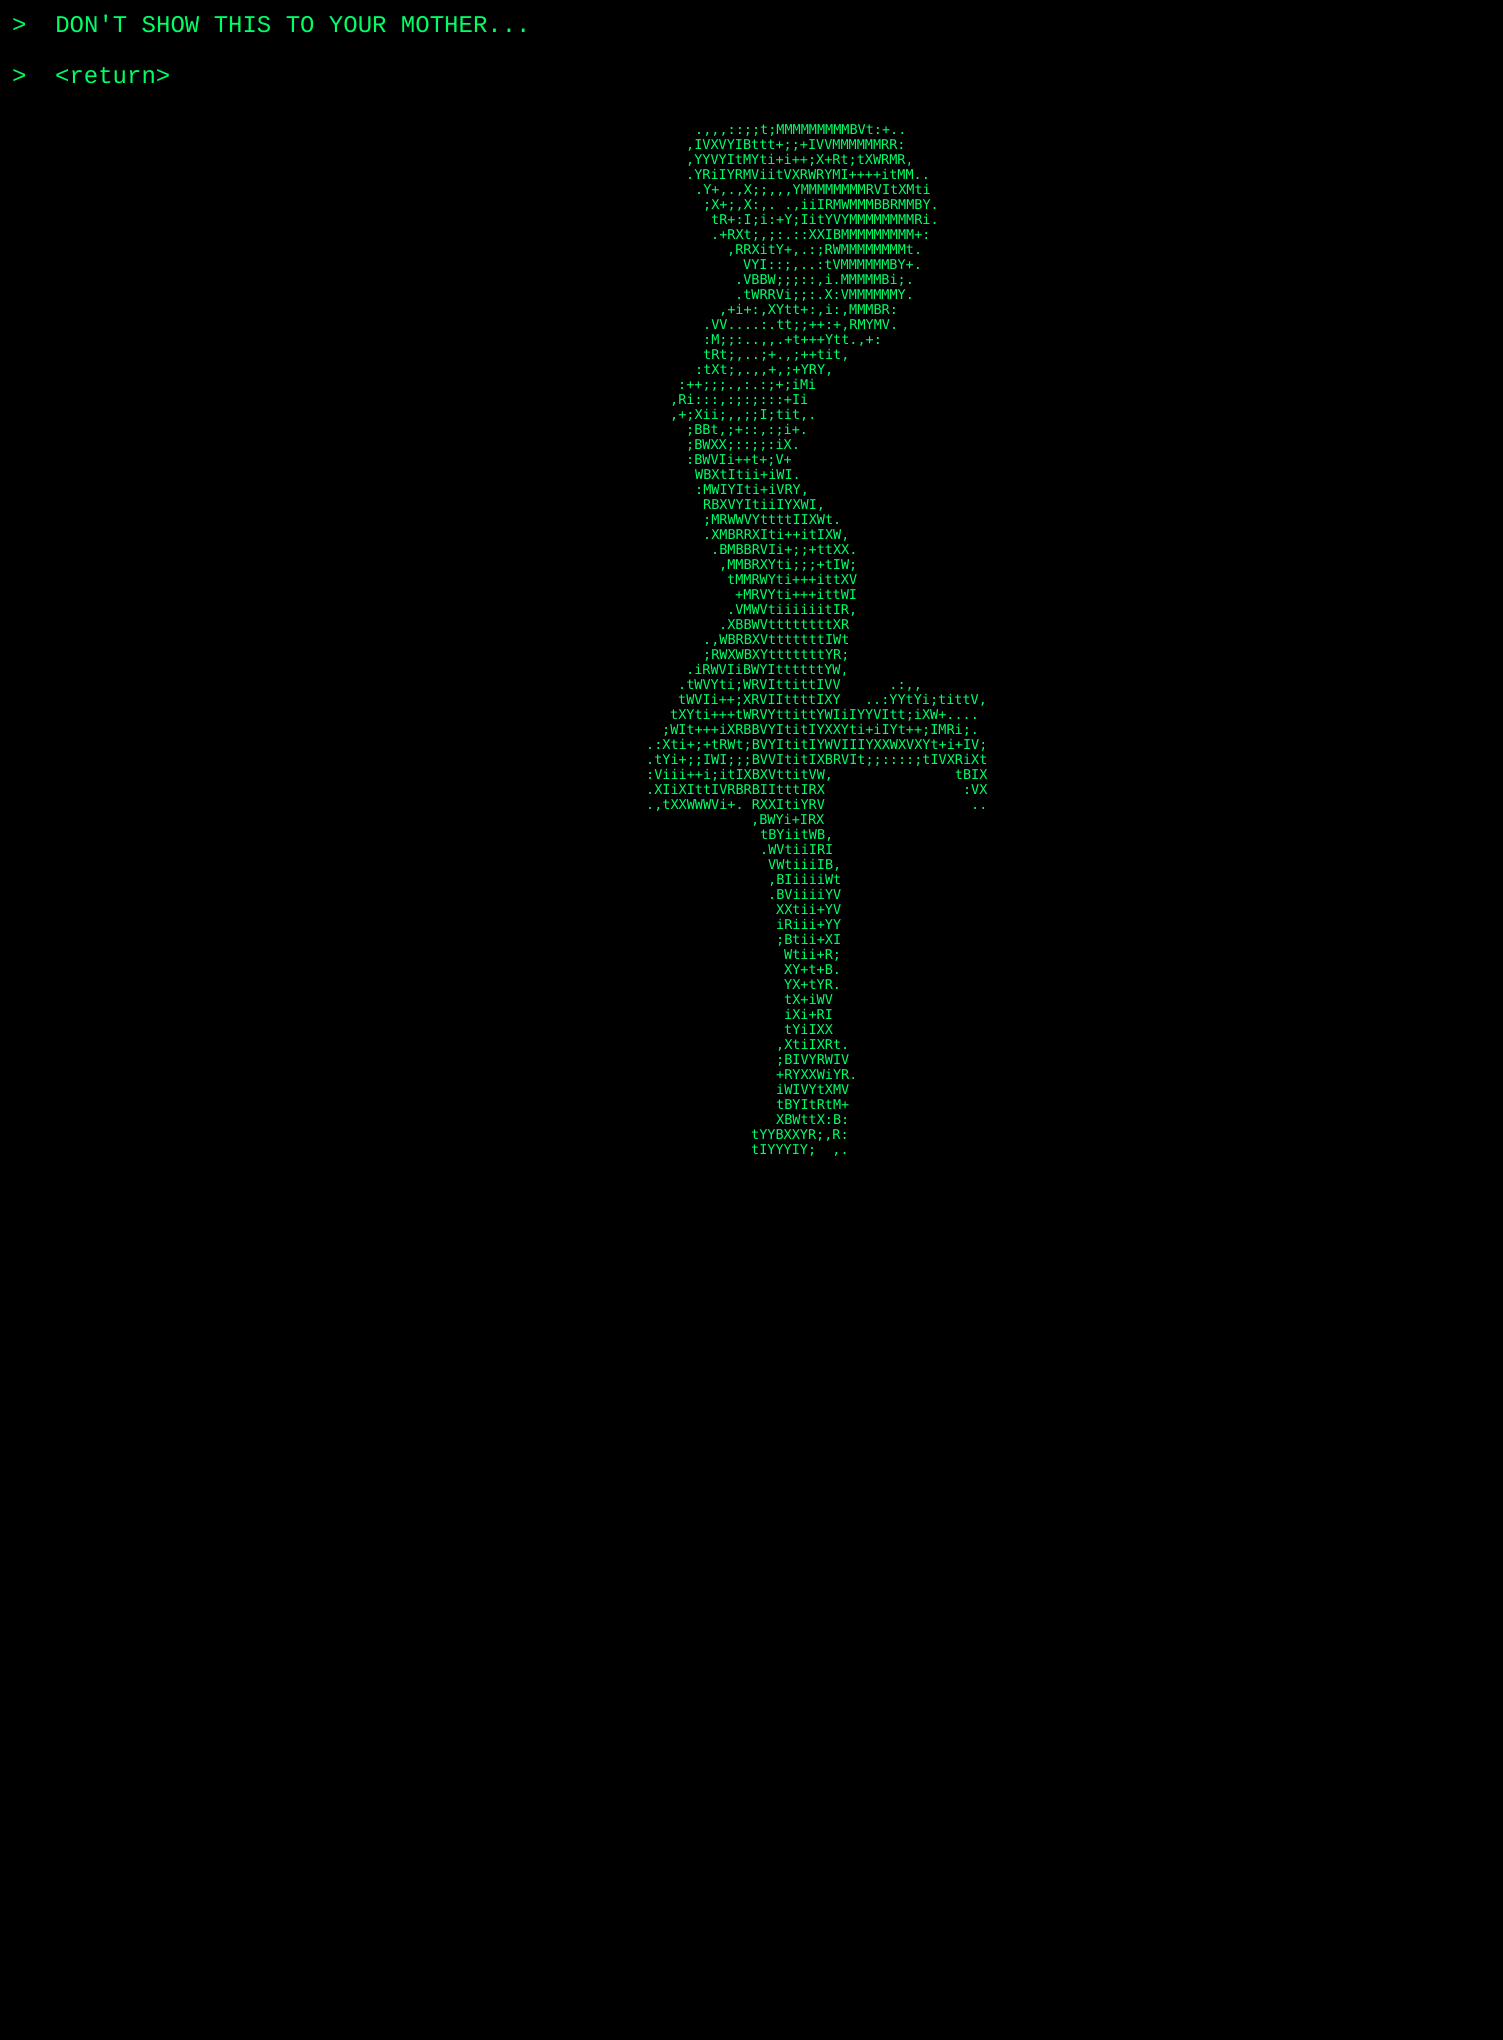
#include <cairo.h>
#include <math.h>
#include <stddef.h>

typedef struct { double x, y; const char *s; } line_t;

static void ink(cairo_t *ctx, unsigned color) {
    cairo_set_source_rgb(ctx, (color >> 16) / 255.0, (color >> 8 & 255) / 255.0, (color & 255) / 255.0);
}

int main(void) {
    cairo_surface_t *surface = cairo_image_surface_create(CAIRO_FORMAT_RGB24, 1503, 2040);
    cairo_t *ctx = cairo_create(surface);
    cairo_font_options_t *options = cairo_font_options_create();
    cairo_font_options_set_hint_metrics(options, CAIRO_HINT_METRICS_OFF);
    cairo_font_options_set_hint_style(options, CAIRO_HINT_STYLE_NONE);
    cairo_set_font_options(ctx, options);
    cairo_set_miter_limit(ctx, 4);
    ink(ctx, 0x000000);
    cairo_paint(ctx);
    cairo_select_font_face(ctx, "Liberation Mono", CAIRO_FONT_SLANT_NORMAL, CAIRO_FONT_WEIGHT_NORMAL);
    cairo_set_font_size(ctx, 24);
    ink(ctx, 0x00FF66);
    {
        static const line_t items[] = {
            {12, 32, ">  DON'T SHOW THIS TO YOUR MOTHER..."},
            {12, 83, ">"},
            {55, 83, "<return>"},
        };
        for (size_t i = 0; i < sizeof items / sizeof *items; i++) {
            cairo_move_to(ctx, items[i].x, items[i].y);
            cairo_show_text(ctx, items[i].s);
        }
    }
    cairo_select_font_face(ctx, "DejaVu Sans Mono", CAIRO_FONT_SLANT_NORMAL, CAIRO_FONT_WEIGHT_NORMAL);
    cairo_set_font_size(ctx, 13.5);
    {
        static const line_t items[] = {
            {695, 134, ".,,,::;;t;MMMMMMMMMBVt:+.."},
            {686, 149, ",IVXVYIBttt+;;+IVVMMMMMMRR:"},
            {686, 164, ",YYVYItMYti+i++;X+Rt;tXWRMR,"},
            {686, 179, ".YRiIYRMViitVXRWRYMI++++itMM.."},
            {695, 194, ".Y+,.,X;;,,,YMMMMMMMMRVItXMti"},
            {703, 209, ";X+;,X:,. .,iiIRMWMMMBBRMMBY."},
            {711, 224, "tR+:I;i:+Y;IitYVYMMMMMMMMRi."},
            {711, 239, ".+RXt;,;:.::XXIBMMMMMMMMM+:"},
            {727, 254, ",RRXitY+,.:;RWMMMMMMMMt."},
            {743, 269, "VYI::;,..:tVMMMMMMBY+."},
            {735, 284, ".VBBW;;;::,i.MMMMMBi;."},
            {735, 299, ".tWRRVi;;:.X:VMMMMMMY."},
            {719, 314, ",+i+:,XYtt+:,i:,MMMBR:"},
            {703, 329, ".VV....:.tt;;++:+,RMYMV."},
            {703, 344, ":M;;:..,,.+t+++Ytt.,+:"},
            {703, 359, "tRt;,..;+.,;++tit,"},
            {695, 374, ":tXt;,.,,+,;+YRY,"},
            {678, 389, ":++;;;.,:.:;+;iMi"},
            {670, 404, ",Ri:::,:;:;:::+Ii"},
            {670, 419, ",+;Xii;,,;;I;tit,."},
            {686, 434, ";BBt,;+::,:;i+."},
            {686, 449, ";BWXX;::;;:iX."},
            {686, 464, ":BWVIi++t+;V+"},
            {695, 479, "WBXtItii+iWI."},
            {695, 494, ":MWIYIti+iVRY,"},
            {703, 509, "RBXVYItiiIYXWI,"},
            {703, 524, ";MRWWVYttttIIXWt."},
            {703, 539, ".XMBRRXIti++itIXW,"},
            {711, 554, ".BMBBRVIi+;;+ttXX."},
            {719, 569, ",MMBRXYti;;;+tIW;"},
            {727, 584, "tMMRWYti+++ittXV"},
            {735, 599, "+MRVYti+++ittWI"},
            {727, 614, ".VMWVtiiiiiitIR,"},
            {719, 629, ".XBBWVttttttttXR"},
            {703, 644, ".,WBRBXVtttttttIWt"},
            {703, 659, ";RWXWBXYtttttttYR;"},
            {686, 674, ".iRWVIiBWYIttttttYW,"},
            {678, 689, ".tWVYti;WRVIttittIVV      .:,,"},
            {678, 704, "tWVIi++;XRVIIttttIXY   ..:YYtYi;tittV,"},
            {670, 719, "tXYti+++tWRVYttittYWIiIYYVItt;iXW+...."},
            {662, 734, ";WIt+++iXRBBVYItitIYXXYti+iIYt++;IMRi;."},
            {646, 749, ".:Xti+;+tRWt;BVYItitIYWVIIIYXXWXVXYt+i+IV;"},
            {646, 764, ".tYi+;;IWI;;;BVVItitIXBRVIt;;::::;tIVXRiXt"},
            {646, 779, ":Viii++i;itIXBXVttitVW,               tBIX"},
            {646, 794, ".XIiXIttIVRBRBIItttIRX                 :VX"},
            {646, 809, ".,tXXWWWVi+. RXXItiYRV                  .."},
            {751, 824, ",BWYi+IRX"},
            {760, 839, "tBYiitWB,"},
            {760, 854, ".WVtiiIRI"},
            {768, 869, "VWtiiiIB,"},
            {768, 884, ",BIiiiiWt"},
            {768, 899, ".BViiiiYV"},
            {776, 914, "XXtii+YV"},
            {776, 929, "iRiii+YY"},
            {776, 944, ";Btii+XI"},
            {784, 959, "Wtii+R;"},
            {784, 974, "XY+t+B."},
            {784, 989, "YX+tYR."},
            {784, 1004, "tX+iWV"},
            {784, 1019, "iXi+RI"},
            {784, 1034, "tYiIXX"},
            {776, 1049, ",XtiIXRt."},
            {776, 1064, ";BIVYRWIV"},
            {776, 1079, "+RYXXWiYR."},
            {776, 1094, "iWIVYtXMV"},
            {776, 1109, "tBYItRtM+"},
            {776, 1124, "XBWttX:B:"},
            {751, 1139, "tYYBXXYR;,R:"},
            {751, 1154, "tIYYYIY;  ,."},
        };
        for (size_t i = 0; i < sizeof items / sizeof *items; i++) {
            cairo_move_to(ctx, items[i].x, items[i].y);
            cairo_show_text(ctx, items[i].s);
        }
    }
    cairo_surface_write_to_png(surface, "image.png");
    cairo_font_options_destroy(options);
    cairo_destroy(ctx);
    cairo_surface_destroy(surface);
    return 0;
}
